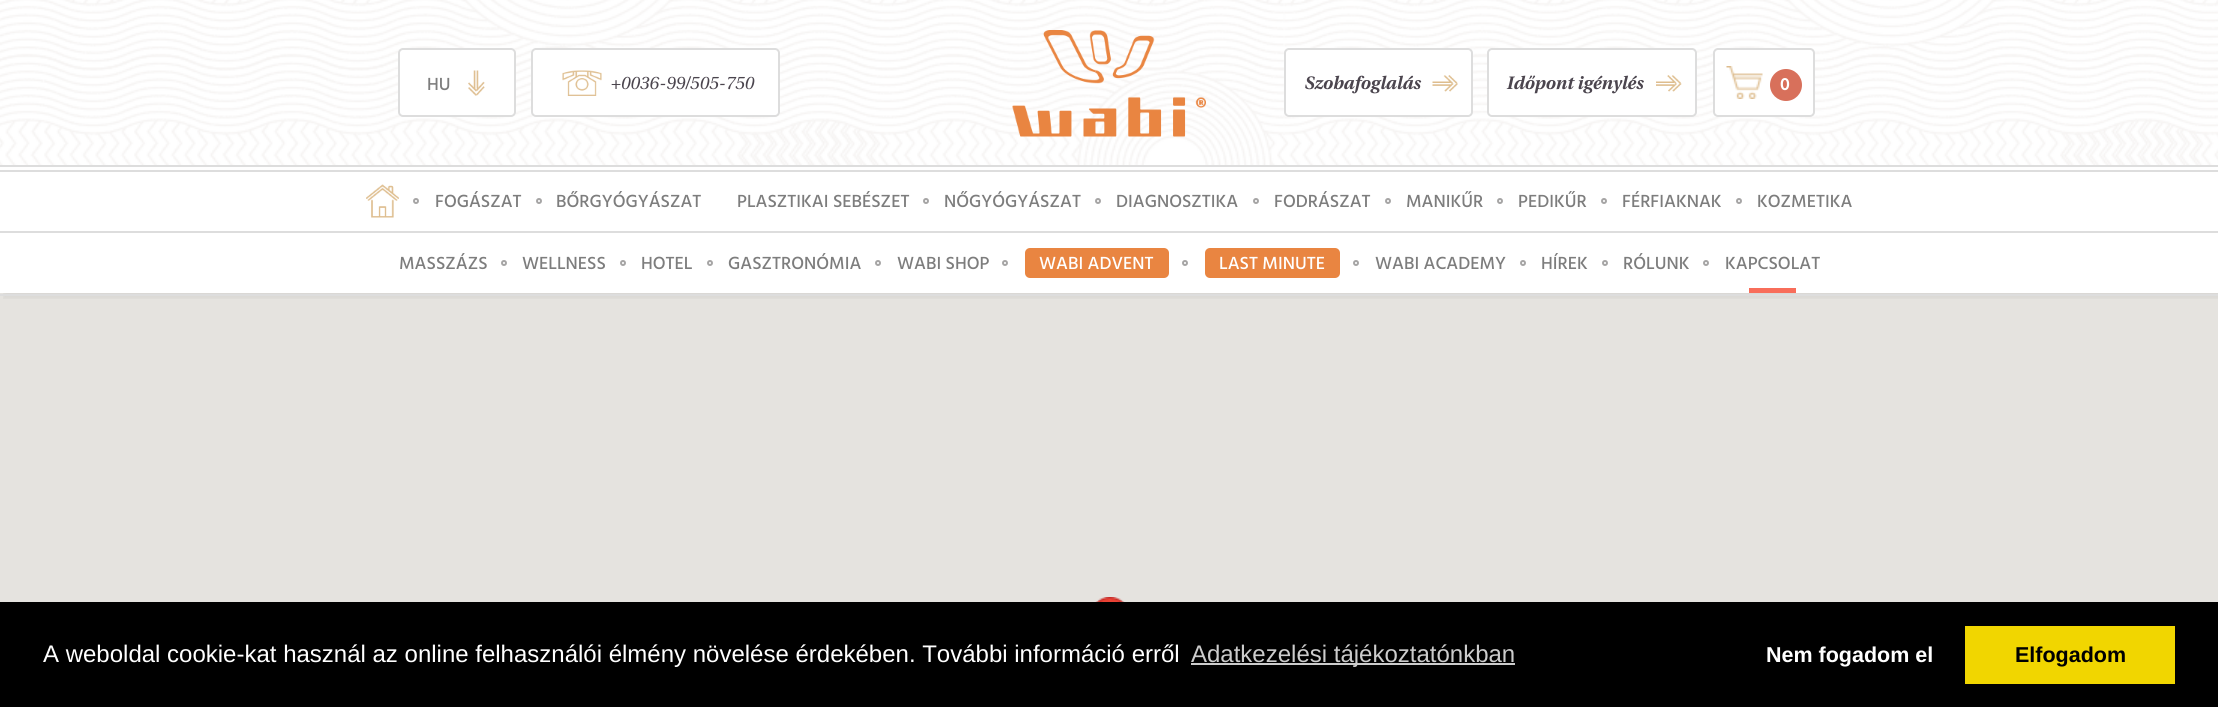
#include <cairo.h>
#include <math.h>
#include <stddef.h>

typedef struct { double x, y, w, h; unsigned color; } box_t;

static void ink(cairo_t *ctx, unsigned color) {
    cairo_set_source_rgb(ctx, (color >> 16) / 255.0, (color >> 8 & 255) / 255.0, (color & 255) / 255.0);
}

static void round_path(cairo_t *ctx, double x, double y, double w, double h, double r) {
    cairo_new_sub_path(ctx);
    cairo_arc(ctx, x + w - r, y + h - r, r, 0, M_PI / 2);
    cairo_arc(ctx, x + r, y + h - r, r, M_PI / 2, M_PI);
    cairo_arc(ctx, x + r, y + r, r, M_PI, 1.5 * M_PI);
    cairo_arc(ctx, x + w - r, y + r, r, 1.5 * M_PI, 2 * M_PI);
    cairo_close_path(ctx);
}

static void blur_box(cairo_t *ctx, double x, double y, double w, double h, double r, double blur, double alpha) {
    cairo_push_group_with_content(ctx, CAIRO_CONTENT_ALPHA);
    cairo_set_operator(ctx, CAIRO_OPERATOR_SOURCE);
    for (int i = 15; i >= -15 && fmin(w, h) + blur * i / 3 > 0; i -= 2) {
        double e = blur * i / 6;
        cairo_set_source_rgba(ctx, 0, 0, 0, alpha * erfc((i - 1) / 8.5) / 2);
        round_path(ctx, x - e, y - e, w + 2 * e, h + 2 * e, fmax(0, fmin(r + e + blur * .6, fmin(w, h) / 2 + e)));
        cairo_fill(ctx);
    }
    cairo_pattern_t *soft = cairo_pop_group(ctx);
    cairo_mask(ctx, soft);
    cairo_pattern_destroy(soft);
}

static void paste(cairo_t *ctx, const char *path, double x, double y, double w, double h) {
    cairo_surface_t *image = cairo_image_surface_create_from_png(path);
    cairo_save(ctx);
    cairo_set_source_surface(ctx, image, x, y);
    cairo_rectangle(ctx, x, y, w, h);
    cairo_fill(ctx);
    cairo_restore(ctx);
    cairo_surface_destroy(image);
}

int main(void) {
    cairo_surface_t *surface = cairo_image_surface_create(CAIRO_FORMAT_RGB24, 2218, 707);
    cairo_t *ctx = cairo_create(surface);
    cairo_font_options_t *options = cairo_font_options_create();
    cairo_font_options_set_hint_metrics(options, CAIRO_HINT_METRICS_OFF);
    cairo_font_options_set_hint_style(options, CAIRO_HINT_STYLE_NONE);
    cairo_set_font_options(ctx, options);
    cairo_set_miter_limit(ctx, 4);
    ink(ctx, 0xFFFFFF);
    cairo_paint(ctx);
    paste(ctx, "media/1.png", 0, 0, 2218, 165);
    ink(ctx, 0xE5E3DF);
    cairo_rectangle(ctx, 0, 293, 2218, 309);
    cairo_fill(ctx);
    cairo_save(ctx);
    cairo_rectangle(ctx, 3, 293, 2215, 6);
    cairo_clip(ctx);
    ink(ctx, 0x000000);
    blur_box(ctx, 3, 6, 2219, 293, 0, 2, 0.05);
    cairo_restore(ctx);
    ink(ctx, 0xFFFFFF);
    round_path(ctx, 398, 48, 118, 69, 5);
    cairo_fill(ctx);
    paste(ctx, "media/2.png", 468, 70, 17, 26);
    round_path(ctx, 399, 49, 116, 67, 4);
    ink(ctx, 0xDDDDDD);
    cairo_stroke(ctx);
    cairo_select_font_face(ctx, "Hind Medium", CAIRO_FONT_SLANT_NORMAL, CAIRO_FONT_WEIGHT_NORMAL);
    cairo_set_font_size(ctx, 18);
    ink(ctx, 0x7D7D7D);
    cairo_move_to(ctx, 427, 90);
    cairo_show_text(ctx, "HU");
    ink(ctx, 0xFFFFFF);
    round_path(ctx, 531, 48, 249, 69, 5);
    cairo_fill(ctx);
    paste(ctx, "media/3.png", 562, 70, 40, 26);
    round_path(ctx, 532, 49, 247, 67, 4);
    ink(ctx, 0xDDDDDD);
    cairo_stroke(ctx);
    cairo_select_font_face(ctx, "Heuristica", CAIRO_FONT_SLANT_ITALIC, CAIRO_FONT_WEIGHT_NORMAL);
    ink(ctx, 0x4B454E);
    cairo_move_to(ctx, 610, 89);
    cairo_show_text(ctx, "+0036-99/505-750");
    paste(ctx, "media/4.png", 1012, 30, 194, 107);
    ink(ctx, 0xFFFFFF);
    round_path(ctx, 1284, 48, 189, 69, 5);
    cairo_fill(ctx);
    paste(ctx, "media/5.png", 1432, 75, 26, 17);
    round_path(ctx, 1285, 49, 187, 67, 4);
    ink(ctx, 0xDDDDDD);
    cairo_stroke(ctx);
    cairo_select_font_face(ctx, "Heuristica", CAIRO_FONT_SLANT_ITALIC, CAIRO_FONT_WEIGHT_BOLD);
    ink(ctx, 0x4B454E);
    cairo_move_to(ctx, 1304, 89);
    cairo_show_text(ctx, "Szobafoglalás");
    ink(ctx, 0xFFFFFF);
    round_path(ctx, 1487, 48, 210, 69, 5);
    cairo_fill(ctx);
    paste(ctx, "media/6.png", 1656, 75, 26, 17);
    round_path(ctx, 1488, 49, 208, 67, 4);
    ink(ctx, 0xDDDDDD);
    cairo_stroke(ctx);
    ink(ctx, 0x4B454E);
    cairo_move_to(ctx, 1506, 89);
    cairo_show_text(ctx, "Időpont igénylés");
    ink(ctx, 0xFFFFFF);
    round_path(ctx, 1713, 48, 102, 69, 5);
    cairo_fill(ctx);
    paste(ctx, "media/7.png", 1726, 66, 37, 33);
    round_path(ctx, 1714, 49, 100, 67, 4);
    ink(ctx, 0xDDDDDD);
    cairo_stroke(ctx);
    ink(ctx, 0xD8705B);
    cairo_arc(ctx, 1786, 85, 16, 0, 2 * M_PI);
    cairo_fill(ctx);
    cairo_select_font_face(ctx, "Hind SemiBold", CAIRO_FONT_SLANT_NORMAL, CAIRO_FONT_WEIGHT_NORMAL);
    ink(ctx, 0xFFFFFF);
    cairo_move_to(ctx, 1780, 90);
    cairo_show_text(ctx, "0");
    {
        static const box_t items[] = {
            {2, 292, 2216, 1, 0xFFFFFF},
            {0, 165, 2218, 2, 0xDDDDDD},
            {0, 170, 2218, 2, 0xDDDDDD},
            {0, 231, 2218, 2, 0xDDDDDD},
        };
        for (size_t i = 0; i < sizeof items / sizeof *items; i++) {
            ink(ctx, items[i].color);
            cairo_rectangle(ctx, items[i].x, items[i].y, items[i].w, items[i].h);
            cairo_fill(ctx);
        }
    }
    paste(ctx, "media/8.png", 366, 184, 33, 34);
    cairo_arc(ctx, 416, 201, 2, 0, 2 * M_PI);
    ink(ctx, 0xA6A5A5);
    cairo_stroke(ctx);
    cairo_select_font_face(ctx, "Hind Medium", CAIRO_FONT_SLANT_NORMAL, CAIRO_FONT_WEIGHT_NORMAL);
    ink(ctx, 0x7D7D7D);
    cairo_move_to(ctx, 435, 207);
    cairo_show_text(ctx, "FOGÁSZAT");
    cairo_new_path(ctx);
    cairo_arc(ctx, 539, 201, 2, 0, 2 * M_PI);
    ink(ctx, 0xA6A5A5);
    cairo_stroke(ctx);
    ink(ctx, 0x7D7D7D);
    cairo_move_to(ctx, 556, 207);
    cairo_show_text(ctx, "BŐRGYÓGYÁSZAT");
    cairo_move_to(ctx, 737, 207);
    cairo_show_text(ctx, "PLASZTIKAI SEBÉSZET");
    cairo_new_path(ctx);
    cairo_arc(ctx, 926, 201, 2, 0, 2 * M_PI);
    ink(ctx, 0xA6A5A5);
    cairo_stroke(ctx);
    ink(ctx, 0x7D7D7D);
    cairo_move_to(ctx, 944, 207);
    cairo_show_text(ctx, "NŐGYÓGYÁSZAT");
    cairo_new_path(ctx);
    cairo_arc(ctx, 1098, 201, 2, 0, 2 * M_PI);
    ink(ctx, 0xA6A5A5);
    cairo_stroke(ctx);
    ink(ctx, 0x7D7D7D);
    cairo_move_to(ctx, 1116, 207);
    cairo_show_text(ctx, "DIAGNOSZTIKA");
    cairo_new_path(ctx);
    cairo_arc(ctx, 1256, 201, 2, 0, 2 * M_PI);
    ink(ctx, 0xA6A5A5);
    cairo_stroke(ctx);
    ink(ctx, 0x7D7D7D);
    cairo_move_to(ctx, 1274, 207);
    cairo_show_text(ctx, "FODRÁSZAT");
    cairo_new_path(ctx);
    cairo_arc(ctx, 1388, 201, 2, 0, 2 * M_PI);
    ink(ctx, 0xA6A5A5);
    cairo_stroke(ctx);
    ink(ctx, 0x7D7D7D);
    cairo_move_to(ctx, 1406, 207);
    cairo_show_text(ctx, "MANIKŰR");
    cairo_new_path(ctx);
    cairo_arc(ctx, 1500, 201, 2, 0, 2 * M_PI);
    ink(ctx, 0xA6A5A5);
    cairo_stroke(ctx);
    ink(ctx, 0x7D7D7D);
    cairo_move_to(ctx, 1518, 207);
    cairo_show_text(ctx, "PEDIKŰR");
    cairo_new_path(ctx);
    cairo_arc(ctx, 1604, 201, 2, 0, 2 * M_PI);
    ink(ctx, 0xA6A5A5);
    cairo_stroke(ctx);
    ink(ctx, 0x7D7D7D);
    cairo_move_to(ctx, 1622, 207);
    cairo_show_text(ctx, "FÉRFIAKNAK");
    cairo_new_path(ctx);
    cairo_arc(ctx, 1739, 201, 2, 0, 2 * M_PI);
    ink(ctx, 0xA6A5A5);
    cairo_stroke(ctx);
    ink(ctx, 0x7D7D7D);
    cairo_move_to(ctx, 1757, 207);
    cairo_show_text(ctx, "KOZMETIKA");
    ink(ctx, 0xDDDDDD);
    cairo_rectangle(ctx, 0, 294, 2218, 2);
    cairo_fill(ctx);
    ink(ctx, 0x7D7D7D);
    cairo_move_to(ctx, 399, 269);
    cairo_show_text(ctx, "MASSZÁZS");
    cairo_new_path(ctx);
    cairo_arc(ctx, 504, 263, 2, 0, 2 * M_PI);
    ink(ctx, 0xA6A5A5);
    cairo_stroke(ctx);
    ink(ctx, 0x7D7D7D);
    cairo_move_to(ctx, 522, 269);
    cairo_show_text(ctx, "WELLNESS");
    cairo_new_path(ctx);
    cairo_arc(ctx, 623, 263, 2, 0, 2 * M_PI);
    ink(ctx, 0xA6A5A5);
    cairo_stroke(ctx);
    ink(ctx, 0x7D7D7D);
    cairo_move_to(ctx, 641, 269);
    cairo_show_text(ctx, "HOTEL");
    cairo_new_path(ctx);
    cairo_arc(ctx, 710, 263, 2, 0, 2 * M_PI);
    ink(ctx, 0xA6A5A5);
    cairo_stroke(ctx);
    ink(ctx, 0x7D7D7D);
    cairo_move_to(ctx, 728, 269);
    cairo_show_text(ctx, "GASZTRONÓMIA");
    cairo_new_path(ctx);
    cairo_arc(ctx, 878, 263, 2, 0, 2 * M_PI);
    ink(ctx, 0xA6A5A5);
    cairo_stroke(ctx);
    ink(ctx, 0x7D7D7D);
    cairo_move_to(ctx, 897, 269);
    cairo_show_text(ctx, "WABI SHOP");
    cairo_new_path(ctx);
    cairo_arc(ctx, 1005, 263, 2, 0, 2 * M_PI);
    ink(ctx, 0xA6A5A5);
    cairo_stroke(ctx);
    ink(ctx, 0xE98541);
    round_path(ctx, 1025, 248, 144, 30, 5);
    cairo_fill(ctx);
    ink(ctx, 0xFFFFFF);
    cairo_move_to(ctx, 1039, 269);
    cairo_show_text(ctx, "WABI ADVENT");
    cairo_new_path(ctx);
    cairo_arc(ctx, 1185, 263, 2, 0, 2 * M_PI);
    ink(ctx, 0xA6A5A5);
    cairo_stroke(ctx);
    ink(ctx, 0xE98541);
    round_path(ctx, 1205, 248, 135, 30, 5);
    cairo_fill(ctx);
    ink(ctx, 0xFFFFFF);
    cairo_move_to(ctx, 1219, 269);
    cairo_show_text(ctx, "LAST MINUTE");
    cairo_new_path(ctx);
    cairo_arc(ctx, 1356, 263, 2, 0, 2 * M_PI);
    ink(ctx, 0xA6A5A5);
    cairo_stroke(ctx);
    ink(ctx, 0x7D7D7D);
    cairo_move_to(ctx, 1375, 269);
    cairo_show_text(ctx, "WABI ACADEMY");
    cairo_new_path(ctx);
    cairo_arc(ctx, 1523, 263, 2, 0, 2 * M_PI);
    ink(ctx, 0xA6A5A5);
    cairo_stroke(ctx);
    ink(ctx, 0x7D7D7D);
    cairo_move_to(ctx, 1541, 269);
    cairo_show_text(ctx, "HÍREK");
    cairo_new_path(ctx);
    cairo_arc(ctx, 1605, 263, 2, 0, 2 * M_PI);
    ink(ctx, 0xA6A5A5);
    cairo_stroke(ctx);
    ink(ctx, 0x7D7D7D);
    cairo_move_to(ctx, 1623, 269);
    cairo_show_text(ctx, "RÓLUNK");
    cairo_new_path(ctx);
    cairo_arc(ctx, 1706, 263, 2, 0, 2 * M_PI);
    ink(ctx, 0xA6A5A5);
    cairo_stroke(ctx);
    ink(ctx, 0xF86D5A);
    cairo_rectangle(ctx, 1749, 288, 47, 5);
    cairo_fill(ctx);
    ink(ctx, 0x7D7D7D);
    cairo_move_to(ctx, 1725, 269);
    cairo_show_text(ctx, "KAPCSOLAT");
    paste(ctx, "media/9.png", 1095, 597, 30, 5);
    ink(ctx, 0x000000);
    cairo_rectangle(ctx, 0, 602, 2218, 105);
    cairo_fill(ctx);
    cairo_select_font_face(ctx, "Liberation Sans", CAIRO_FONT_SLANT_NORMAL, CAIRO_FONT_WEIGHT_NORMAL);
    cairo_set_font_size(ctx, 24);
    ink(ctx, 0xFFFFFF);
    cairo_move_to(ctx, 43, 662);
    cairo_show_text(ctx, "A weboldal cookie-kat használ az online felhasználói élmény növelése érdekében. További információ erről");
    ink(ctx, 0xCCCCCC);
    cairo_rectangle(ctx, 1191, 663, 324, 2);
    cairo_fill(ctx);
    cairo_move_to(ctx, 1191, 662);
    cairo_show_text(ctx, "Adatkezelési tájékoztatónkban");
    cairo_select_font_face(ctx, "Liberation Sans", CAIRO_FONT_SLANT_NORMAL, CAIRO_FONT_WEIGHT_BOLD);
    cairo_set_font_size(ctx, 21.5);
    ink(ctx, 0xFFFFFF);
    cairo_move_to(ctx, 1766, 662);
    cairo_show_text(ctx, "Nem fogadom el");
    ink(ctx, 0xF1D600);
    cairo_rectangle(ctx, 1965, 626, 210, 58);
    cairo_fill(ctx);
    ink(ctx, 0x000000);
    cairo_move_to(ctx, 2015, 662);
    cairo_show_text(ctx, "Elfogadom");
    cairo_surface_write_to_png(surface, "image.png");
    cairo_font_options_destroy(options);
    cairo_destroy(ctx);
    cairo_surface_destroy(surface);
    return 0;
}
